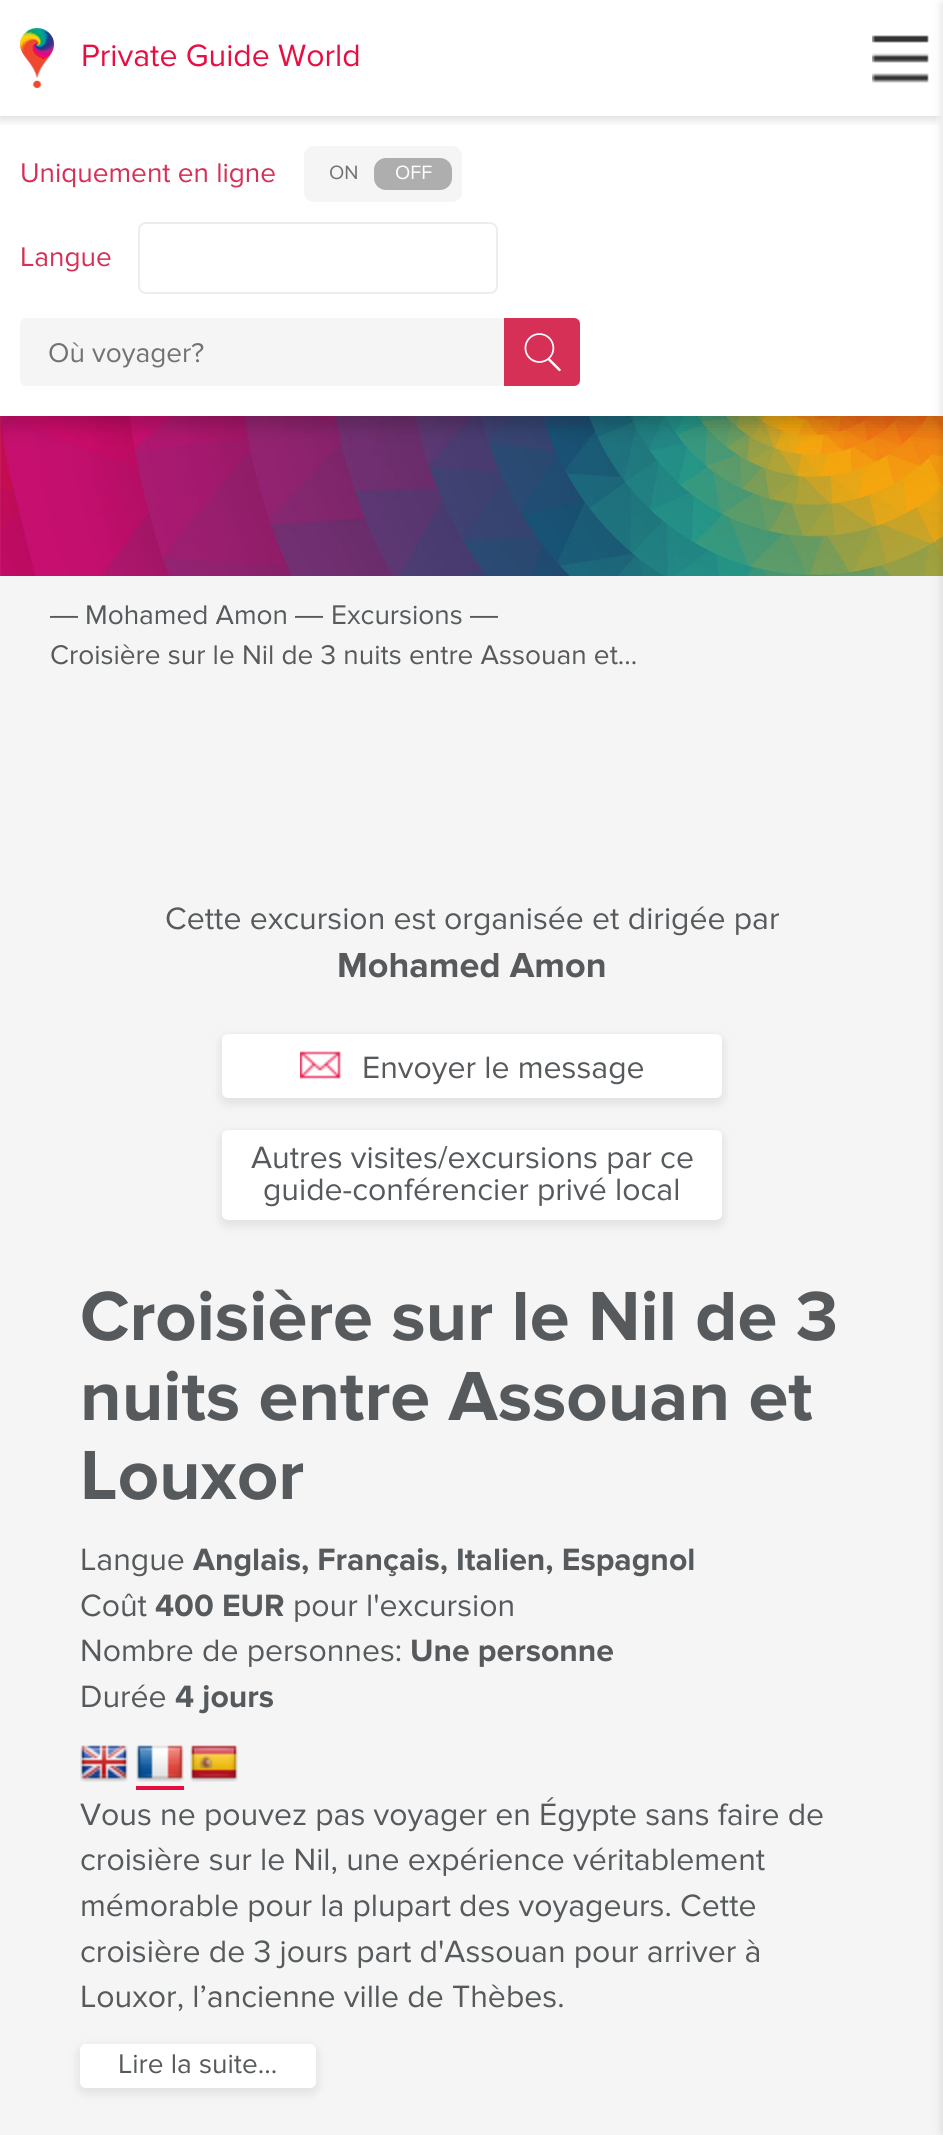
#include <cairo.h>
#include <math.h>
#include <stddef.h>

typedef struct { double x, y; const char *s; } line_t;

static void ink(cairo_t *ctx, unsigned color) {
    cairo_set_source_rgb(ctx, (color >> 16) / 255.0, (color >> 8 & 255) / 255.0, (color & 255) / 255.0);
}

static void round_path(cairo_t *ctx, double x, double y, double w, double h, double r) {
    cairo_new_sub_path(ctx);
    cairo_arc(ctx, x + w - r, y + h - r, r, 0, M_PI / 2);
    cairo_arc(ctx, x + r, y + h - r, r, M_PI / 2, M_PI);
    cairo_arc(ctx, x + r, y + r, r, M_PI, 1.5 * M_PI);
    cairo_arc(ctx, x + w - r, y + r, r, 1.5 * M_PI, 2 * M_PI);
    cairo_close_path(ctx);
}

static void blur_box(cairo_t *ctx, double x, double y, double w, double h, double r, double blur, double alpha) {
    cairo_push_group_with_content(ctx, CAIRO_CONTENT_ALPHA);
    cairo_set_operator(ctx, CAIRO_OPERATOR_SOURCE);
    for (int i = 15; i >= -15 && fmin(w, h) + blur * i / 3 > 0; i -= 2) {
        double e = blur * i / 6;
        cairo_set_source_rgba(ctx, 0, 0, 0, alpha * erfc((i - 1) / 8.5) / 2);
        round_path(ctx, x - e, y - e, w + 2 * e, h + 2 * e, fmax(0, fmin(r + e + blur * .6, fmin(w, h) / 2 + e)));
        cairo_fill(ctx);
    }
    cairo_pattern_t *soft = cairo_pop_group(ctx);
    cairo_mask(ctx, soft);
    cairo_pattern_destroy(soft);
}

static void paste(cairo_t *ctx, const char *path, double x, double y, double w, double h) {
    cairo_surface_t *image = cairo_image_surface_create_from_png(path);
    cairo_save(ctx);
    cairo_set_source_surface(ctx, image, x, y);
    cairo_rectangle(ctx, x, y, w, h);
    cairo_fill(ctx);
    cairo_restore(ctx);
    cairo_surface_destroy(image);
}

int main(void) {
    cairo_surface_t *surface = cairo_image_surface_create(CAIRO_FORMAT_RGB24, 943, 2135);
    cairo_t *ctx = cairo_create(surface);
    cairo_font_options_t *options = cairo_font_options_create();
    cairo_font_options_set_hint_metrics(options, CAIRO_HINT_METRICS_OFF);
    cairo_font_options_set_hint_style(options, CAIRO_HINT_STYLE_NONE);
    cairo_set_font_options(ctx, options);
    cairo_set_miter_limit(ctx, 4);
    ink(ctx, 0xF5F5F5);
    cairo_paint(ctx);
    paste(ctx, "media/4.png", 0, 416, 943, 160);
    ink(ctx, 0x000000);
    blur_box(ctx, 0, 10, 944, 416, 0, 10, 0.2);
    ink(ctx, 0xFFFFFF);
    cairo_rectangle(ctx, 0, 0, 943, 416);
    cairo_fill(ctx);
    cairo_save(ctx);
    cairo_rectangle(ctx, 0, 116, 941, 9);
    cairo_clip(ctx);
    ink(ctx, 0x000000);
    blur_box(ctx, 0, 10, 936, 108, 0, 6, 0.17);
    cairo_restore(ctx);
    paste(ctx, "media/1.png", 20, 28, 34, 60);
    cairo_select_font_face(ctx, "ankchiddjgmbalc", CAIRO_FONT_SLANT_NORMAL, CAIRO_FONT_WEIGHT_NORMAL);
    cairo_set_font_size(ctx, 32);
    ink(ctx, 0xE70F42);
    cairo_move_to(ctx, 81, 66);
    cairo_show_text(ctx, "Private Guide World");
    ink(ctx, 0x000000);
    blur_box(ctx, 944, 4, 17, 2128, 0, 6, 0.17);
    cairo_set_font_size(ctx, 28);
    ink(ctx, 0xD63057);
    cairo_move_to(ctx, 20, 182);
    cairo_show_text(ctx, "Uniquement en ligne");
    ink(ctx, 0xF5F5F5);
    round_path(ctx, 304, 146, 158, 56, 10);
    cairo_fill(ctx);
    cairo_set_font_size(ctx, 20);
    ink(ctx, 0x727272);
    cairo_move_to(ctx, 329, 179);
    cairo_show_text(ctx, "ON");
    ink(ctx, 0xAEAEAE);
    round_path(ctx, 374, 158, 78, 32, 12);
    cairo_fill(ctx);
    ink(ctx, 0xFFFFFF);
    cairo_move_to(ctx, 395, 179);
    cairo_show_text(ctx, "OFF");
    cairo_set_font_size(ctx, 28);
    ink(ctx, 0xD63057);
    cairo_move_to(ctx, 20, 266);
    cairo_show_text(ctx, "Langue");
    round_path(ctx, 139, 223, 358, 70, 7);
    ink(ctx, 0xEDEDED);
    cairo_stroke(ctx);
    ink(ctx, 0xF5F5F5);
    round_path(ctx, 20, 318, 486, 68, 6);
    cairo_fill(ctx);
    ink(ctx, 0x727272);
    cairo_move_to(ctx, 48, 362);
    cairo_show_text(ctx, "Où voyager?");
    ink(ctx, 0xD63057);
    cairo_new_path(ctx);
    cairo_move_to(ctx, 504, 318);
    cairo_line_to(ctx, 574, 318);
    cairo_curve_to(ctx, 577.5, 318, 580, 320.5, 580, 324);
    cairo_line_to(ctx, 580, 380);
    cairo_curve_to(ctx, 580, 383.5, 577.5, 386, 574, 386);
    cairo_line_to(ctx, 504, 386);
    cairo_close_path(ctx);
    cairo_fill(ctx);
    paste(ctx, "media/2.png", 524, 333, 37, 39);
    paste(ctx, "media/3.png", 872, 35, 57, 48);
    cairo_select_font_face(ctx, "Liberation Sans", CAIRO_FONT_SLANT_NORMAL, CAIRO_FONT_WEIGHT_NORMAL);
    ink(ctx, 0x565A5C);
    cairo_move_to(ctx, 50, 624);
    cairo_show_text(ctx, "―");
    cairo_select_font_face(ctx, "ankchiddjgmbalc", CAIRO_FONT_SLANT_NORMAL, CAIRO_FONT_WEIGHT_NORMAL);
    cairo_move_to(ctx, 85, 624);
    cairo_show_text(ctx, "Mohamed Amon");
    cairo_select_font_face(ctx, "Liberation Sans", CAIRO_FONT_SLANT_NORMAL, CAIRO_FONT_WEIGHT_NORMAL);
    cairo_move_to(ctx, 295, 624);
    cairo_show_text(ctx, "―");
    cairo_select_font_face(ctx, "ankchiddjgmbalc", CAIRO_FONT_SLANT_NORMAL, CAIRO_FONT_WEIGHT_NORMAL);
    cairo_move_to(ctx, 331, 624);
    cairo_show_text(ctx, "Excursions");
    cairo_select_font_face(ctx, "Liberation Sans", CAIRO_FONT_SLANT_NORMAL, CAIRO_FONT_WEIGHT_NORMAL);
    cairo_move_to(ctx, 470, 624);
    cairo_show_text(ctx, "―");
    cairo_select_font_face(ctx, "ankchiddjgmbalc", CAIRO_FONT_SLANT_NORMAL, CAIRO_FONT_WEIGHT_NORMAL);
    cairo_move_to(ctx, 50, 664);
    cairo_show_text(ctx, "Croisière sur le Nil de 3 nuits entre Assouan et...");
    cairo_set_font_size(ctx, 32);
    cairo_move_to(ctx, 165, 929);
    cairo_show_text(ctx, "Cette excursion est organisée et dirigée par");
    cairo_select_font_face(ctx, "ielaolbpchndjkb", CAIRO_FONT_SLANT_NORMAL, CAIRO_FONT_WEIGHT_BOLD);
    cairo_set_font_size(ctx, 36);
    cairo_move_to(ctx, 337, 977);
    cairo_show_text(ctx, "Mohamed Amon");
    ink(ctx, 0x494949);
    blur_box(ctx, 220, 1036, 504, 68, 8, 5, 0.12);
    ink(ctx, 0xFFFFFF);
    round_path(ctx, 222, 1034, 500, 64, 6);
    cairo_fill(ctx);
    paste(ctx, "media/5.png", 300, 1051, 41, 28);
    cairo_select_font_face(ctx, "ankchiddjgmbalc", CAIRO_FONT_SLANT_NORMAL, CAIRO_FONT_WEIGHT_NORMAL);
    cairo_set_font_size(ctx, 32);
    ink(ctx, 0x565A5C);
    cairo_move_to(ctx, 362, 1078);
    cairo_show_text(ctx, "Envoyer le message");
    ink(ctx, 0x494949);
    blur_box(ctx, 220, 1132, 504, 94, 8, 5, 0.12);
    ink(ctx, 0xFFFFFF);
    round_path(ctx, 222, 1130, 500, 90, 6);
    cairo_fill(ctx);
    ink(ctx, 0x565A5C);
    cairo_move_to(ctx, 251, 1168);
    cairo_show_text(ctx, "Autres visites/excursions par ce");
    cairo_move_to(ctx, 263, 1200);
    cairo_show_text(ctx, "guide-conférencier privé local");
    cairo_select_font_face(ctx, "ielaolbpchndjkb", CAIRO_FONT_SLANT_NORMAL, CAIRO_FONT_WEIGHT_BOLD);
    cairo_set_font_size(ctx, 72);
    {
        static const line_t items[] = {
            {80, 1340, "Croisière sur le Nil de 3"},
            {80, 1420, "nuits entre Assouan et"},
            {80, 1499, "Louxor"},
        };
        for (size_t i = 0; i < sizeof items / sizeof *items; i++) {
            cairo_move_to(ctx, items[i].x, items[i].y);
            cairo_show_text(ctx, items[i].s);
        }
    }
    cairo_select_font_face(ctx, "ankchiddjgmbalc", CAIRO_FONT_SLANT_NORMAL, CAIRO_FONT_WEIGHT_NORMAL);
    cairo_set_font_size(ctx, 32);
    cairo_move_to(ctx, 80, 1570);
    cairo_show_text(ctx, "Langue");
    cairo_select_font_face(ctx, "ielaolbpchndjkb", CAIRO_FONT_SLANT_NORMAL, CAIRO_FONT_WEIGHT_BOLD);
    cairo_move_to(ctx, 193, 1570);
    cairo_show_text(ctx, "Anglais, Français, Italien, Espagnol");
    cairo_select_font_face(ctx, "ankchiddjgmbalc", CAIRO_FONT_SLANT_NORMAL, CAIRO_FONT_WEIGHT_NORMAL);
    cairo_move_to(ctx, 80, 1616);
    cairo_show_text(ctx, "Coût");
    cairo_select_font_face(ctx, "ielaolbpchndjkb", CAIRO_FONT_SLANT_NORMAL, CAIRO_FONT_WEIGHT_BOLD);
    cairo_move_to(ctx, 155, 1616);
    cairo_show_text(ctx, "400 EUR");
    cairo_select_font_face(ctx, "ankchiddjgmbalc", CAIRO_FONT_SLANT_NORMAL, CAIRO_FONT_WEIGHT_NORMAL);
    cairo_move_to(ctx, 293, 1616);
    cairo_show_text(ctx, "pour l'excursion");
    cairo_move_to(ctx, 80, 1661);
    cairo_show_text(ctx, "Nombre de personnes:");
    cairo_select_font_face(ctx, "ielaolbpchndjkb", CAIRO_FONT_SLANT_NORMAL, CAIRO_FONT_WEIGHT_BOLD);
    cairo_move_to(ctx, 410, 1661);
    cairo_show_text(ctx, "Une personne");
    cairo_select_font_face(ctx, "ankchiddjgmbalc", CAIRO_FONT_SLANT_NORMAL, CAIRO_FONT_WEIGHT_NORMAL);
    cairo_move_to(ctx, 80, 1707);
    cairo_show_text(ctx, "Durée");
    cairo_select_font_face(ctx, "ielaolbpchndjkb", CAIRO_FONT_SLANT_NORMAL, CAIRO_FONT_WEIGHT_BOLD);
    cairo_move_to(ctx, 175, 1707);
    cairo_show_text(ctx, "4 jours");
    paste(ctx, "media/6.png", 80, 1745, 48, 37);
    paste(ctx, "media/7.png", 136, 1745, 48, 37);
    ink(ctx, 0xE70F42);
    cairo_rectangle(ctx, 136, 1786, 48, 4);
    cairo_fill(ctx);
    paste(ctx, "media/8.png", 190, 1745, 48, 37);
    cairo_select_font_face(ctx, "ankchiddjgmbalc", CAIRO_FONT_SLANT_NORMAL, CAIRO_FONT_WEIGHT_NORMAL);
    ink(ctx, 0x565A5C);
    {
        static const line_t items[] = {
            {80, 1825, "Vous ne pouvez pas voyager en Égypte sans faire de"},
            {80, 1870, "croisière sur le Nil, une expérience véritablement"},
            {80, 1916, "mémorable pour la plupart des voyageurs. Cette"},
            {80, 1962, "croisière de 3 jours part d'Assouan pour arriver à"},
            {80, 2007, "Louxor, l’ancienne ville de Thèbes."},
        };
        for (size_t i = 0; i < sizeof items / sizeof *items; i++) {
            cairo_move_to(ctx, items[i].x, items[i].y);
            cairo_show_text(ctx, items[i].s);
        }
    }
    ink(ctx, 0x494949);
    blur_box(ctx, 78, 2046, 240, 48, 8, 5, 0.12);
    ink(ctx, 0xFFFFFF);
    round_path(ctx, 80, 2044, 236, 44, 6);
    cairo_fill(ctx);
    cairo_set_font_size(ctx, 28);
    ink(ctx, 0x565A5C);
    cairo_move_to(ctx, 118, 2073);
    cairo_show_text(ctx, "Lire la suite...");
    cairo_surface_write_to_png(surface, "image.png");
    cairo_font_options_destroy(options);
    cairo_destroy(ctx);
    cairo_surface_destroy(surface);
    return 0;
}
